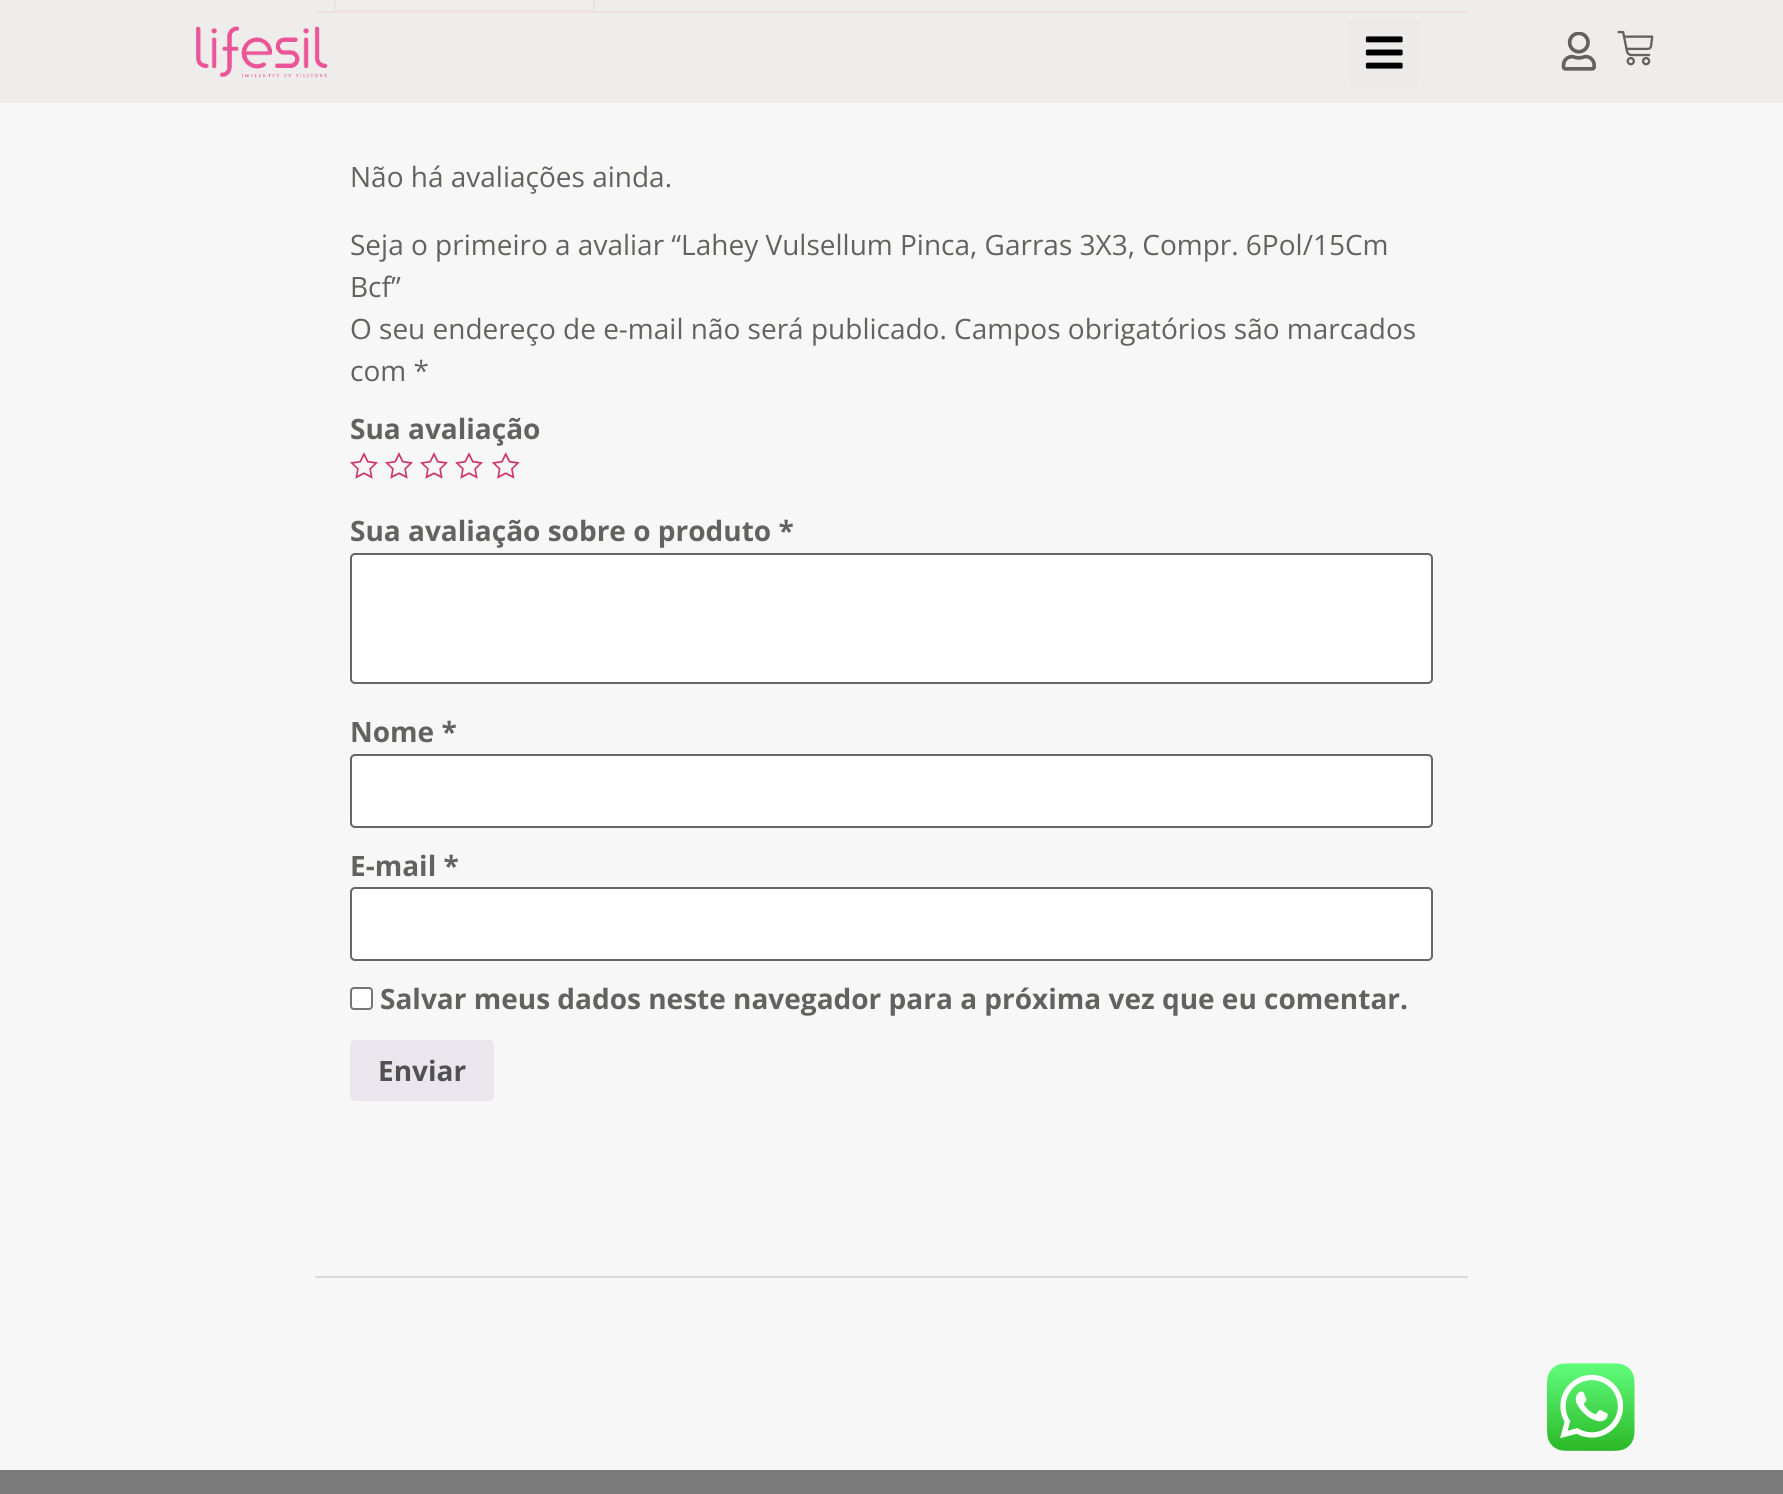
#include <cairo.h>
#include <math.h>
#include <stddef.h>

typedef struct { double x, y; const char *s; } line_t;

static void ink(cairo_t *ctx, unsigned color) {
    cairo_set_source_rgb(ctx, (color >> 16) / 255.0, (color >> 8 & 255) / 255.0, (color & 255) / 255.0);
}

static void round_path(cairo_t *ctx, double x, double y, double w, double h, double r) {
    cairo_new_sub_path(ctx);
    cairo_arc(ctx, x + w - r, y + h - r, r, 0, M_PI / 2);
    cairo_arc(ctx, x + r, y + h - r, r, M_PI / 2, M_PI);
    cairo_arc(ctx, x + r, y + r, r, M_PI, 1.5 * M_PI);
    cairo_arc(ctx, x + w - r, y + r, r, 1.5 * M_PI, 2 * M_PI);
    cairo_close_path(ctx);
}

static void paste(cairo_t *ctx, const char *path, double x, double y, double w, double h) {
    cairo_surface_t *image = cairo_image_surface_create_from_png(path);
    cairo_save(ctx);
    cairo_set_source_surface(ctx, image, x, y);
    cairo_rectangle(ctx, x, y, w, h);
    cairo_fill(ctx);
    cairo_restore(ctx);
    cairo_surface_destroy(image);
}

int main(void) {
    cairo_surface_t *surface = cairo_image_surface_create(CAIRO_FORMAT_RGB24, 1783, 1494);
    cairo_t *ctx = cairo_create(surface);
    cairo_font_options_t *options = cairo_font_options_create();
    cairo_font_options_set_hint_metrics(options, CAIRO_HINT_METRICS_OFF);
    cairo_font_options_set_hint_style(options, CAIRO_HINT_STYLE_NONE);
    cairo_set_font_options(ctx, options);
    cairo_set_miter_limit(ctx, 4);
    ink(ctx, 0xF7F7F7);
    cairo_paint(ctx);
    ink(ctx, 0xEA5497);
    cairo_rectangle(ctx, 315, 11, 1153, 2);
    cairo_fill(ctx);
    ink(ctx, 0xFFFFFF);
    cairo_rectangle(ctx, 335, -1, 259, 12);
    cairo_fill_preserve(ctx);
    ink(ctx, 0xEA5497);
    cairo_stroke(ctx);
    cairo_set_source_rgba(ctx, 0.937, 0.925, 0.922, 0.92);
    cairo_rectangle(ctx, 0, 0, 1783, 103);
    cairo_fill(ctx);
    paste(ctx, "media/1.png", 195, 26, 133, 52);
    ink(ctx, 0xEDEBEA);
    round_path(ctx, 1349, 18, 70, 70, 5);
    cairo_fill(ctx);
    paste(ctx, "media/2.png", 1365, 36, 38, 33);
    paste(ctx, "media/3.png", 1561, 32, 35, 39);
    paste(ctx, "media/4.png", 1617, 30, 37, 36);
    cairo_select_font_face(ctx, "Open Sans", CAIRO_FONT_SLANT_NORMAL, CAIRO_FONT_WEIGHT_NORMAL);
    cairo_set_font_size(ctx, 28);
    ink(ctx, 0x62625F);
    {
        static const line_t items[] = {
            {350, 187, "Não há avaliações ainda."},
            {350, 255, "Seja o primeiro a avaliar “Lahey Vulsellum Pinca, Garras 3X3, Compr. 6Pol/15Cm"},
            {350, 297, "Bcf”"},
            {350, 339, "O seu endereço de e-mail não será publicado. Campos obrigatórios são marcados"},
            {350, 381, "com *"},
        };
        for (size_t i = 0; i < sizeof items / sizeof *items; i++) {
            cairo_move_to(ctx, items[i].x, items[i].y);
            cairo_show_text(ctx, items[i].s);
        }
    }
    cairo_select_font_face(ctx, "Open Sans", CAIRO_FONT_SLANT_NORMAL, CAIRO_FONT_WEIGHT_BOLD);
    cairo_move_to(ctx, 350, 439);
    cairo_show_text(ctx, "Sua avaliação");
    paste(ctx, "media/5.png", 350, 452, 28, 27);
    paste(ctx, "media/5.png", 385, 452, 28, 27);
    paste(ctx, "media/5.png", 420, 452, 28, 27);
    paste(ctx, "media/5.png", 455, 452, 28, 27);
    paste(ctx, "media/6.png", 491, 452, 29, 27);
    cairo_move_to(ctx, 350, 541);
    cairo_show_text(ctx, "Sua avaliação sobre o produto *");
    ink(ctx, 0xFFFFFF);
    round_path(ctx, 351, 554, 1081, 129, 4);
    cairo_fill_preserve(ctx);
    ink(ctx, 0x666666);
    cairo_stroke(ctx);
    ink(ctx, 0x62625F);
    cairo_move_to(ctx, 350, 742);
    cairo_show_text(ctx, "Nome *");
    ink(ctx, 0xFFFFFF);
    round_path(ctx, 351, 755, 1081, 72, 4);
    cairo_fill_preserve(ctx);
    ink(ctx, 0x666666);
    cairo_stroke(ctx);
    ink(ctx, 0x62625F);
    cairo_move_to(ctx, 350, 876);
    cairo_show_text(ctx, "E-mail *");
    ink(ctx, 0xFFFFFF);
    round_path(ctx, 351, 888, 1081, 72, 4);
    cairo_fill_preserve(ctx);
    ink(ctx, 0x666666);
    cairo_stroke(ctx);
    ink(ctx, 0xFFFFFF);
    round_path(ctx, 351, 988, 21, 21, 3);
    cairo_fill_preserve(ctx);
    ink(ctx, 0x767676);
    cairo_stroke(ctx);
    ink(ctx, 0x62625F);
    cairo_move_to(ctx, 380, 1009);
    cairo_show_text(ctx, "Salvar meus dados neste navegador para a próxima vez que eu comentar.");
    ink(ctx, 0xE9E6ED);
    round_path(ctx, 350, 1040, 144, 61, 5);
    cairo_fill(ctx);
    ink(ctx, 0x515151);
    cairo_move_to(ctx, 378, 1081);
    cairo_show_text(ctx, "Enviar");
    ink(ctx, 0xDADADA);
    cairo_rectangle(ctx, 315, 1276, 1153, 2);
    cairo_fill(ctx);
    paste(ctx, "media/7.png", 1547, 1363, 88, 88);
    ink(ctx, 0x7A7A7A);
    cairo_rectangle(ctx, 0, 1470, 1783, 24);
    cairo_fill(ctx);
    cairo_surface_write_to_png(surface, "image.png");
    cairo_font_options_destroy(options);
    cairo_destroy(ctx);
    cairo_surface_destroy(surface);
    return 0;
}
